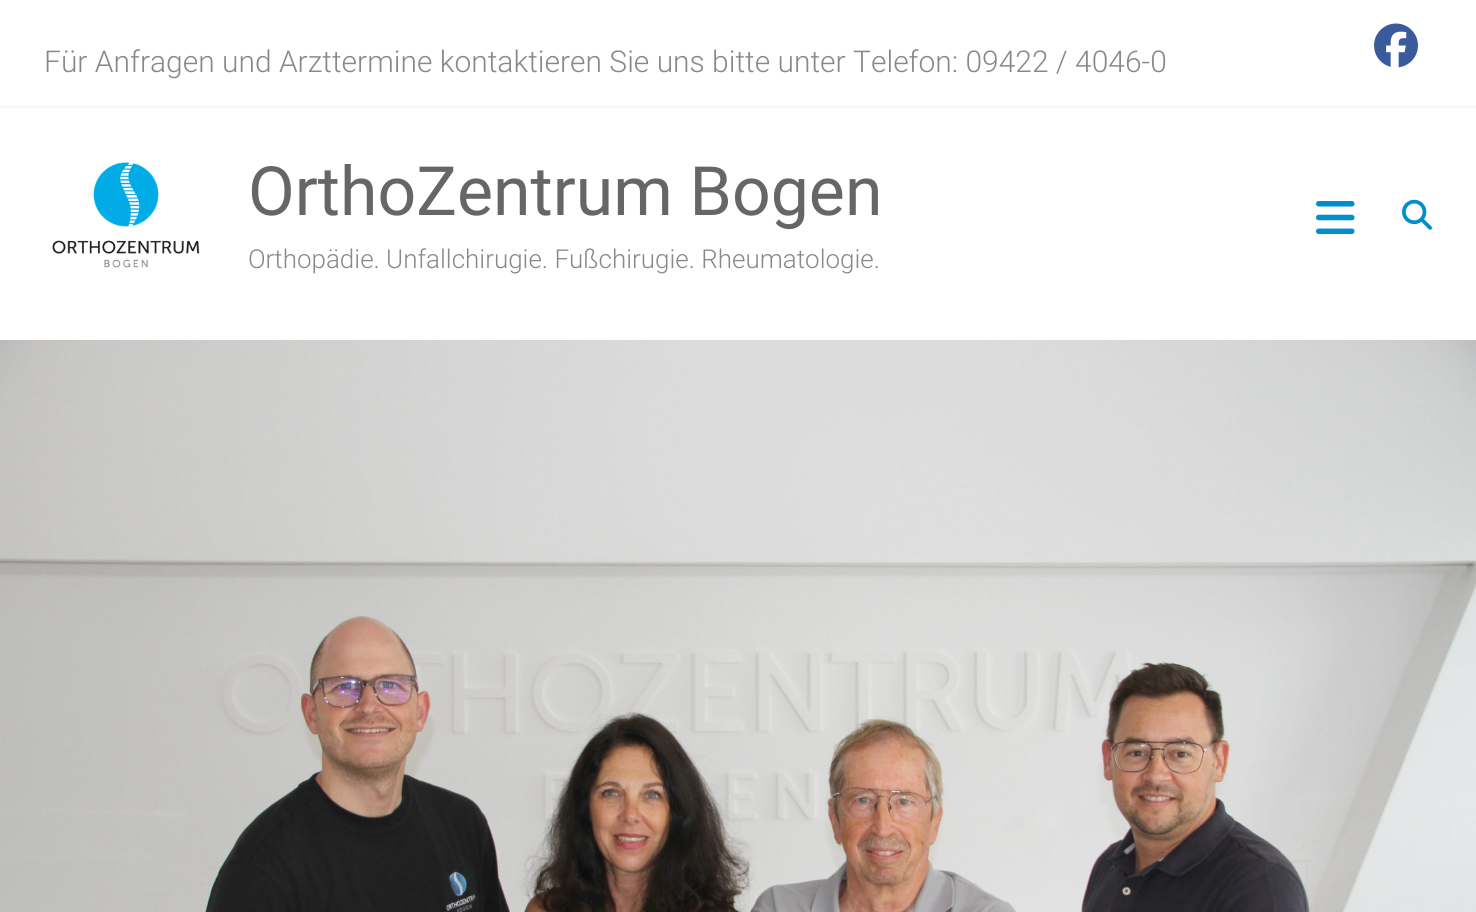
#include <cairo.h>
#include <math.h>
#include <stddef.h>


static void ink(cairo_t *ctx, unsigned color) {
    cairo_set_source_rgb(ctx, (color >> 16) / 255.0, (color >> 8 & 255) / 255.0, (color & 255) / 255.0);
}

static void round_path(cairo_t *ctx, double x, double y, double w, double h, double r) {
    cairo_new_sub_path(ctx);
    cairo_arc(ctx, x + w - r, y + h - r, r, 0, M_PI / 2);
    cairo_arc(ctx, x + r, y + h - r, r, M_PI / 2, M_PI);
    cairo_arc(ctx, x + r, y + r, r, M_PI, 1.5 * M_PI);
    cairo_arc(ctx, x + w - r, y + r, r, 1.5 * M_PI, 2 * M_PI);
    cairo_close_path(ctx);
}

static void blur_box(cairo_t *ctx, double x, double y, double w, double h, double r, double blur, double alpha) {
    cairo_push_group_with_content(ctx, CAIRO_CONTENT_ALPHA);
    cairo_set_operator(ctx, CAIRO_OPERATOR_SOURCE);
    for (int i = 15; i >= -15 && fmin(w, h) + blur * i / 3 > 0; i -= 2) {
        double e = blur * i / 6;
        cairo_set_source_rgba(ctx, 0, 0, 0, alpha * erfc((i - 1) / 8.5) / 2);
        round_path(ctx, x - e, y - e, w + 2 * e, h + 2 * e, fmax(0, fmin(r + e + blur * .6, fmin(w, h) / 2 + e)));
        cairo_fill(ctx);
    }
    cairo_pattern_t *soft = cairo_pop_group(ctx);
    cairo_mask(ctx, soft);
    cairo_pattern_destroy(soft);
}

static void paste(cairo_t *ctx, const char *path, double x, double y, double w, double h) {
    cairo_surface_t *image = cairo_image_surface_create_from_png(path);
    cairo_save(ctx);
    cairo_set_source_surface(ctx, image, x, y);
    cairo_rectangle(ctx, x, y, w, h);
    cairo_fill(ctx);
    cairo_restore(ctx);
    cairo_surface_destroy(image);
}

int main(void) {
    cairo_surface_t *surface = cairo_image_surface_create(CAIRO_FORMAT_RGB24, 1476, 912);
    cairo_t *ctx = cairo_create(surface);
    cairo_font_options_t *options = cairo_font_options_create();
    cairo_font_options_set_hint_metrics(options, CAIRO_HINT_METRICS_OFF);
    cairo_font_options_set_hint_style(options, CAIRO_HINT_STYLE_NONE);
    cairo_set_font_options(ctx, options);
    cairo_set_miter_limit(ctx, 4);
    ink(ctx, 0xFFFFFF);
    cairo_paint(ctx);
    cairo_save(ctx);
    cairo_rectangle(ctx, 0, 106, 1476, 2);
    cairo_clip(ctx);
    ink(ctx, 0x000000);
    blur_box(ctx, 0, 0, 1476, 106, 0, 2, 0.1);
    cairo_restore(ctx);
    cairo_select_font_face(ctx, "Roboto Light", CAIRO_FONT_SLANT_NORMAL, CAIRO_FONT_WEIGHT_NORMAL);
    cairo_set_font_size(ctx, 30);
    ink(ctx, 0x888888);
    cairo_move_to(ctx, 44, 72);
    cairo_show_text(ctx, "Für Anfragen und Arzttermine kontaktieren Sie uns bitte unter Telefon: 09422 / 4046-0");
    paste(ctx, "media/1.png", 1374, 23, 44, 45);
    paste(ctx, "media/2.png", 52, 162, 148, 106);
    cairo_select_font_face(ctx, "Roboto", CAIRO_FONT_SLANT_NORMAL, CAIRO_FONT_WEIGHT_NORMAL);
    cairo_set_font_size(ctx, 68);
    ink(ctx, 0x666666);
    cairo_move_to(ctx, 248, 215);
    cairo_show_text(ctx, "OrthoZentrum Bogen");
    cairo_select_font_face(ctx, "Roboto Light", CAIRO_FONT_SLANT_NORMAL, CAIRO_FONT_WEIGHT_NORMAL);
    cairo_set_font_size(ctx, 26);
    ink(ctx, 0x888888);
    cairo_move_to(ctx, 248, 268);
    cairo_show_text(ctx, "Orthopädie. Unfallchirugie. Fußchirugie. Rheumatologie.");
    paste(ctx, "media/3.png", 1316, 201, 39, 33);
    paste(ctx, "media/4.png", 1402, 199, 30, 31);
    paste(ctx, "media/5.png", 0, 340, 1476, 572);
    cairo_surface_write_to_png(surface, "image.png");
    cairo_font_options_destroy(options);
    cairo_destroy(ctx);
    cairo_surface_destroy(surface);
    return 0;
}
